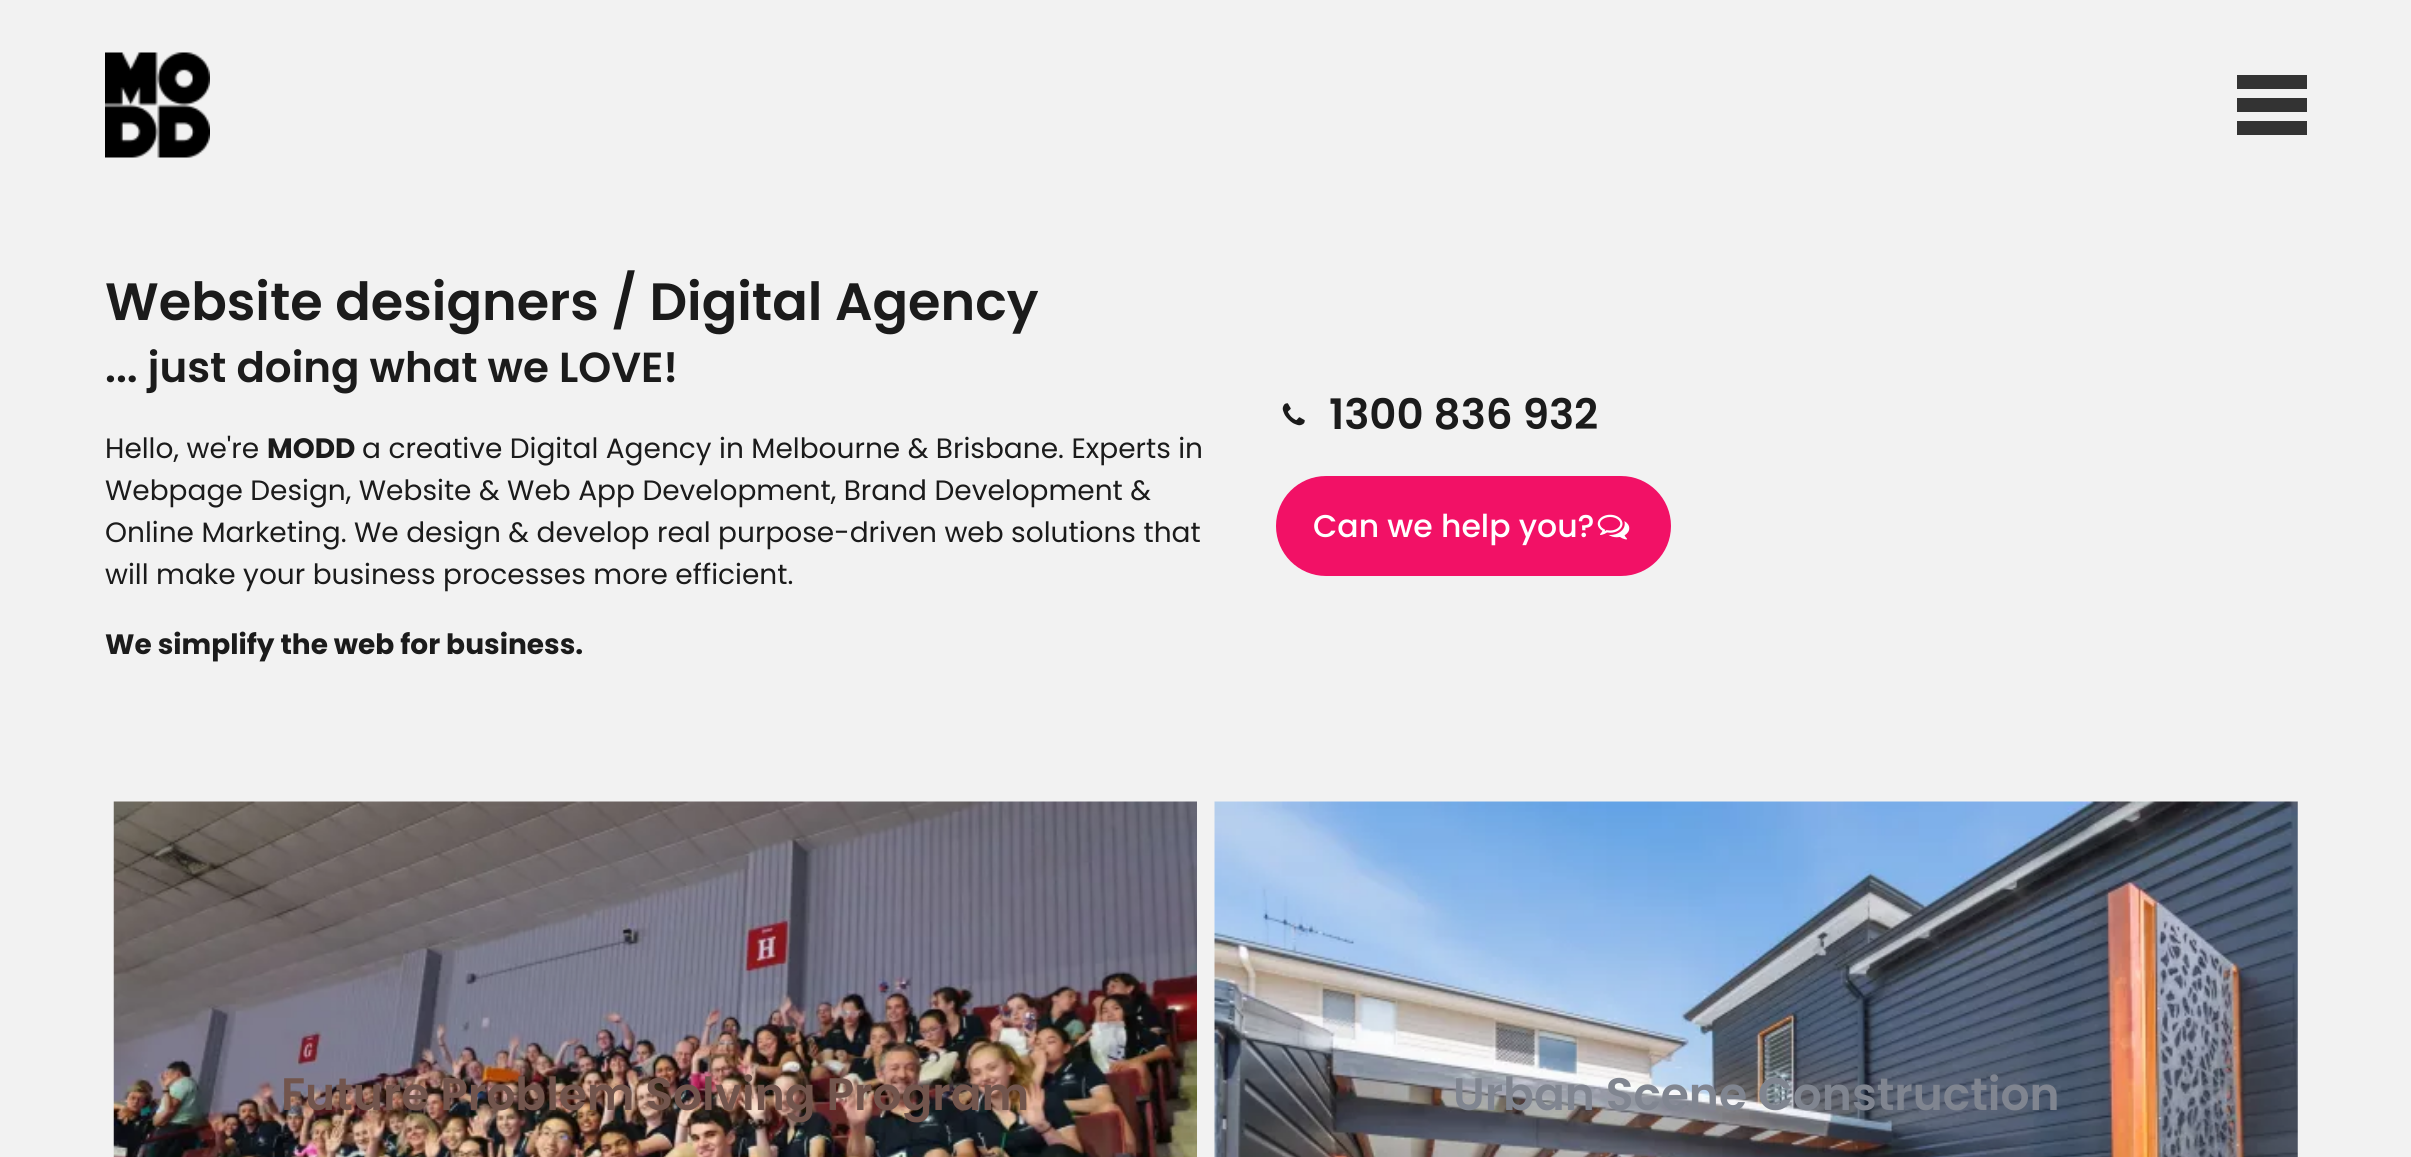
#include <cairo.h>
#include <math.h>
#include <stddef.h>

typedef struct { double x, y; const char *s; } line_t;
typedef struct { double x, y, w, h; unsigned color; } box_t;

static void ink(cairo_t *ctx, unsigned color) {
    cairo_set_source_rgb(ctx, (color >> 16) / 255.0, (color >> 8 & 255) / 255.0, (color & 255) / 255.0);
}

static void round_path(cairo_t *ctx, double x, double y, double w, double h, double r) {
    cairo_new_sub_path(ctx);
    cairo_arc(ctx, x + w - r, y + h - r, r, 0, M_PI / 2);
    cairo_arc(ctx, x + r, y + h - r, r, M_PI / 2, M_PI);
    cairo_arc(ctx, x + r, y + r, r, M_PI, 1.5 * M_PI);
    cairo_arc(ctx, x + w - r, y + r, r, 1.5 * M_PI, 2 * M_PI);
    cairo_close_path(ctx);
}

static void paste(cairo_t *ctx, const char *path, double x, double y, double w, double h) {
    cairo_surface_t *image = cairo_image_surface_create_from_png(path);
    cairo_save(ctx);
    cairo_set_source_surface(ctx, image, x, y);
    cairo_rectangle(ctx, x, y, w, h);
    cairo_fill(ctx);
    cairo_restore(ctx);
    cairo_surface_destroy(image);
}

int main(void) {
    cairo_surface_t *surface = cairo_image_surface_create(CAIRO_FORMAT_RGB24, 2411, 1157);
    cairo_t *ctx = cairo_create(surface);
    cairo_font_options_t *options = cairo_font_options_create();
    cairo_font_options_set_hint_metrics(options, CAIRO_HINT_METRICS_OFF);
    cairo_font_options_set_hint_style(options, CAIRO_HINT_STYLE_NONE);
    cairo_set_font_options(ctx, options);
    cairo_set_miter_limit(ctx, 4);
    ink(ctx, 0xF2F2F2);
    cairo_paint(ctx);
    paste(ctx, "media/1.png", 105, 52, 105, 106);
    {
        static const box_t items[] = {
            {2237, 75, 70, 14, 0x333333},
            {2237, 98, 70, 14, 0x333333},
            {2237, 121, 70, 14, 0x333333},
        };
        for (size_t i = 0; i < sizeof items / sizeof *items; i++) {
            ink(ctx, items[i].color);
            cairo_rectangle(ctx, items[i].x, items[i].y, items[i].w, items[i].h);
            cairo_fill(ctx);
        }
    }
    cairo_select_font_face(ctx, "Poppins SemiBold", CAIRO_FONT_SLANT_NORMAL, CAIRO_FONT_WEIGHT_NORMAL);
    cairo_set_font_size(ctx, 52.5);
    ink(ctx, 0x1B1B1B);
    cairo_move_to(ctx, 105, 320);
    cairo_show_text(ctx, "Website designers / Digital Agency");
    cairo_set_font_size(ctx, 42);
    cairo_move_to(ctx, 105, 382);
    cairo_show_text(ctx, "... just doing what we LOVE!");
    cairo_select_font_face(ctx, "Poppins", CAIRO_FONT_SLANT_NORMAL, CAIRO_FONT_WEIGHT_NORMAL);
    cairo_set_font_size(ctx, 28);
    cairo_move_to(ctx, 105, 458);
    cairo_show_text(ctx, "Hello, we're");
    cairo_select_font_face(ctx, "Poppins", CAIRO_FONT_SLANT_NORMAL, CAIRO_FONT_WEIGHT_BOLD);
    cairo_move_to(ctx, 267, 458);
    cairo_show_text(ctx, "MODD");
    cairo_select_font_face(ctx, "Poppins", CAIRO_FONT_SLANT_NORMAL, CAIRO_FONT_WEIGHT_NORMAL);
    {
        static const line_t items[] = {
            {362, 458, "a creative Digital Agency in Melbourne & Brisbane. Experts in"},
            {105, 500, "Webpage Design, Website & Web App Development, Brand Development &"},
            {105, 542, "Online Marketing. We design & develop real purpose-driven web solutions that"},
            {105, 584, "will make your business processes more efficient."},
        };
        for (size_t i = 0; i < sizeof items / sizeof *items; i++) {
            cairo_move_to(ctx, items[i].x, items[i].y);
            cairo_show_text(ctx, items[i].s);
        }
    }
    cairo_select_font_face(ctx, "Poppins", CAIRO_FONT_SLANT_NORMAL, CAIRO_FONT_WEIGHT_BOLD);
    cairo_move_to(ctx, 105, 654);
    cairo_show_text(ctx, "We simplify the web for business.");
    paste(ctx, "media/2.png", 1282, 403, 23, 23);
    cairo_select_font_face(ctx, "Poppins SemiBold", CAIRO_FONT_SLANT_NORMAL, CAIRO_FONT_WEIGHT_NORMAL);
    cairo_set_font_size(ctx, 42);
    cairo_move_to(ctx, 1329, 429);
    cairo_show_text(ctx, "1300 836 932");
    ink(ctx, 0xF21166);
    round_path(ctx, 1276, 476, 395, 100, 50);
    cairo_fill(ctx);
    cairo_select_font_face(ctx, "Poppins Medium", CAIRO_FONT_SLANT_NORMAL, CAIRO_FONT_WEIGHT_NORMAL);
    cairo_set_font_size(ctx, 31.5);
    ink(ctx, 0xFFFFFF);
    cairo_move_to(ctx, 1313, 537);
    cairo_show_text(ctx, "Can we help you?");
    paste(ctx, "media/3.png", 1597, 514, 33, 26);
    paste(ctx, "media/4.png", 113, 801, 1084, 356);
    cairo_select_font_face(ctx, "Poppins SemiBold", CAIRO_FONT_SLANT_NORMAL, CAIRO_FONT_WEIGHT_NORMAL);
    cairo_set_font_size(ctx, 45.5);
    ink(ctx, 0x72554D);
    cairo_move_to(ctx, 281, 1110);
    cairo_show_text(ctx, "Future Problem Solving Program");
    paste(ctx, "media/5.png", 1214, 801, 1084, 356);
    ink(ctx, 0x808590);
    cairo_move_to(ctx, 1453, 1110);
    cairo_show_text(ctx, "Urban Scene Construction");
    cairo_surface_write_to_png(surface, "image.png");
    cairo_font_options_destroy(options);
    cairo_destroy(ctx);
    cairo_surface_destroy(surface);
    return 0;
}
